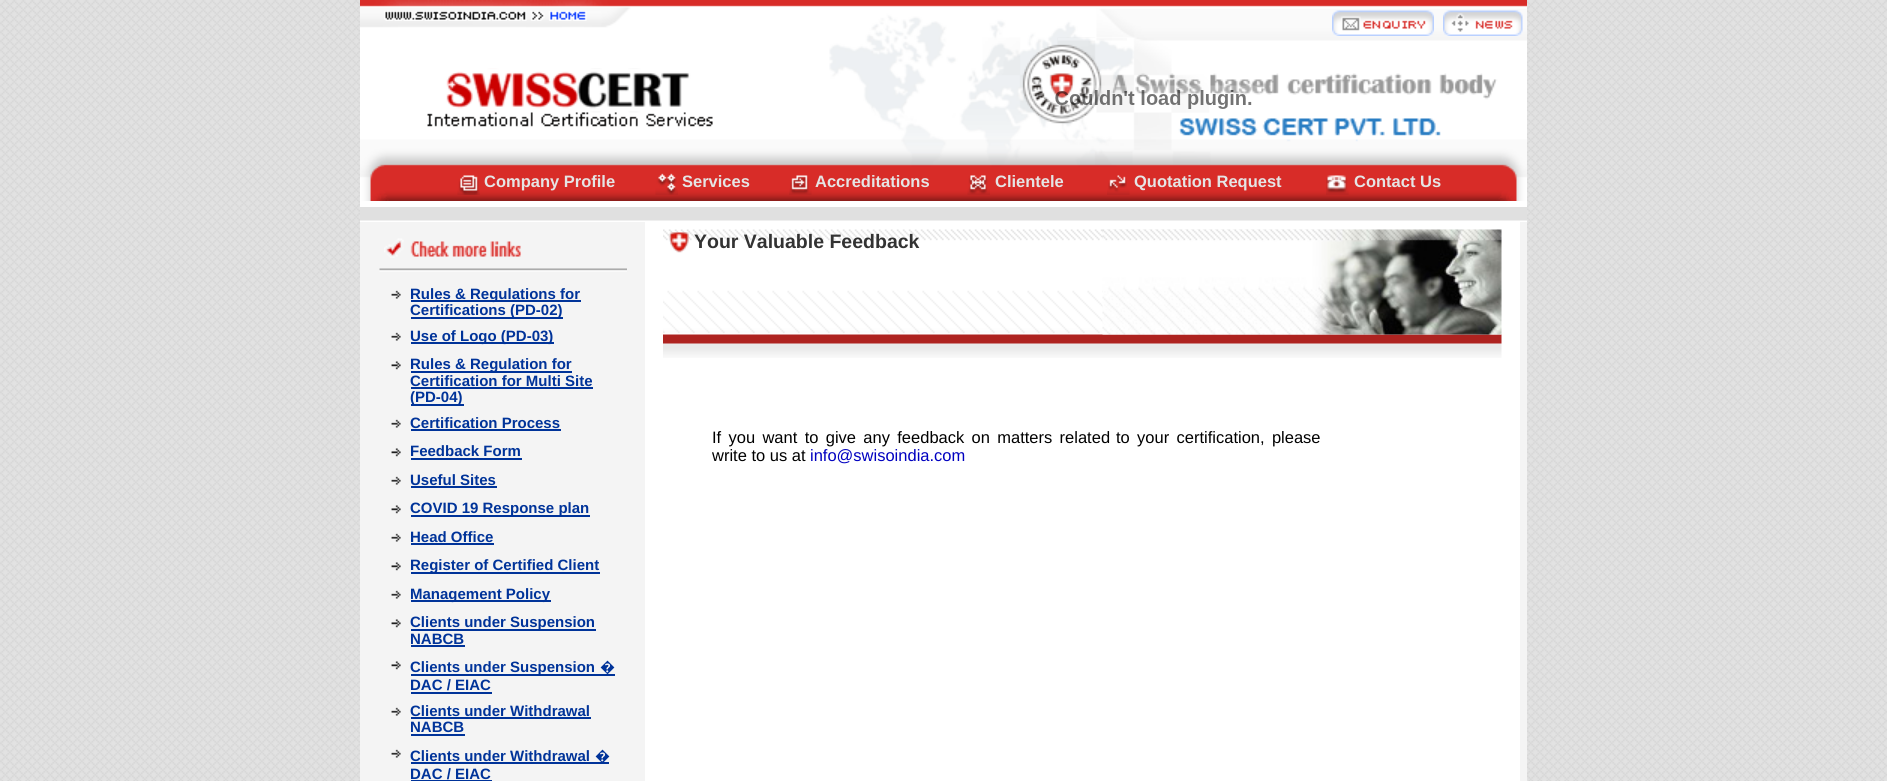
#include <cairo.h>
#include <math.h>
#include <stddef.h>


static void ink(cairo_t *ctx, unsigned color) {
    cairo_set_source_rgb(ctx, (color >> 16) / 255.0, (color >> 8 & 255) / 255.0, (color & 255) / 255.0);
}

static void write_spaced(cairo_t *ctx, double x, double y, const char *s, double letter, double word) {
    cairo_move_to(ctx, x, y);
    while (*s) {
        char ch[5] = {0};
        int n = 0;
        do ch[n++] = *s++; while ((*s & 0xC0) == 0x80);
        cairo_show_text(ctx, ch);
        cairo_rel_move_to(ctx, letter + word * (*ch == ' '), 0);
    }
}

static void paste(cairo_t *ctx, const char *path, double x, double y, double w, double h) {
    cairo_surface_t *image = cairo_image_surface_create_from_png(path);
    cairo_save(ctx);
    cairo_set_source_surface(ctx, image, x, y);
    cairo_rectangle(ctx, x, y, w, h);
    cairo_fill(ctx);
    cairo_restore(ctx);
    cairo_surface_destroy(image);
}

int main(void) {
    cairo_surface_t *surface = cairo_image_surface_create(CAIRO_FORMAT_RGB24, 1887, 781);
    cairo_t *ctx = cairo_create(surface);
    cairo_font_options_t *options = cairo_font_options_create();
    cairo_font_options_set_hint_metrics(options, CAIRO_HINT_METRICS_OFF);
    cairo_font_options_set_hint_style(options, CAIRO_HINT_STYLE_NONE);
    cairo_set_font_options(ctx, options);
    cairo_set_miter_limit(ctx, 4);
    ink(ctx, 0xFFFFFF);
    cairo_paint(ctx);
    paste(ctx, "media/1.png", 0, 0, 1887, 781);
    ink(ctx, 0xF4F4F4);
    cairo_rectangle(ctx, 360, 222, 1167, 559);
    cairo_fill(ctx);
    paste(ctx, "media/2.png", 360, 0, 1167, 201);
    paste(ctx, "media/3.png", 384, 11, 203, 10);
    paste(ctx, "media/4.png", 427, 68, 286, 59);
    paste(ctx, "media/5.png", 1058, 38, 69, 3);
    paste(ctx, "media/6.png", 1332, 10, 102, 26);
    paste(ctx, "media/7.png", 1443, 10, 80, 26);
    paste(ctx, "media/8.png", 1045, 85, 216, 28);
    paste(ctx, "media/9.png", 457, 175, 23, 20);
    cairo_select_font_face(ctx, "Liberation Sans", CAIRO_FONT_SLANT_NORMAL, CAIRO_FONT_WEIGHT_BOLD);
    cairo_set_font_size(ctx, 16.5);
    ink(ctx, 0xE5E5E5);
    cairo_move_to(ctx, 484, 187);
    cairo_show_text(ctx, "Company Profile");
    paste(ctx, "media/10.png", 655, 173, 23, 22);
    cairo_move_to(ctx, 682, 187);
    cairo_show_text(ctx, "Services");
    paste(ctx, "media/11.png", 789, 175, 23, 20);
    cairo_move_to(ctx, 815, 187);
    cairo_show_text(ctx, "Accreditations");
    paste(ctx, "media/12.png", 967, 175, 23, 20);
    cairo_move_to(ctx, 995, 187);
    cairo_show_text(ctx, "Clientele");
    paste(ctx, "media/13.png", 1107, 175, 23, 20);
    cairo_move_to(ctx, 1134, 187);
    cairo_show_text(ctx, "Quotation Request");
    paste(ctx, "media/14.png", 1326, 175, 23, 20);
    cairo_move_to(ctx, 1354, 187);
    cairo_show_text(ctx, "Contact Us");
    ink(ctx, 0xFFFFFF);
    cairo_rectangle(ctx, 360, 201, 1167, 6);
    cairo_fill(ctx);
    paste(ctx, "media/15.png", 360, 207, 1167, 15);
    paste(ctx, "media/16.png", 384, 238, 20, 20);
    paste(ctx, "media/17.png", 410, 241, 112, 16);
    paste(ctx, "media/18.png", 379, 268, 248, 4);
    paste(ctx, "media/19.png", 391, 290, 10, 9);
    ink(ctx, 0x003399);
    cairo_rectangle(ctx, 411, 300, 170, 2);
    cairo_fill(ctx);
    cairo_set_font_size(ctx, 15);
    cairo_move_to(ctx, 410, 299);
    cairo_show_text(ctx, "Rules & Regulations for");
    cairo_rectangle(ctx, 411, 317, 152, 2);
    cairo_fill(ctx);
    cairo_move_to(ctx, 410, 315);
    cairo_show_text(ctx, "Certifications (PD-02)");
    paste(ctx, "media/19.png", 391, 332, 10, 9);
    cairo_rectangle(ctx, 411, 342, 143, 2);
    cairo_fill(ctx);
    cairo_move_to(ctx, 410, 341);
    cairo_show_text(ctx, "Use of Logo (PD-03)");
    paste(ctx, "media/20.png", 391, 361, 10, 9);
    cairo_rectangle(ctx, 411, 371, 161, 2);
    cairo_fill(ctx);
    cairo_move_to(ctx, 410, 369);
    cairo_show_text(ctx, "Rules & Regulation for");
    cairo_move_to(ctx, 410, 386);
    cairo_show_text(ctx, "Certification for Multi Site");
    cairo_rectangle(ctx, 411, 387, 182, 2);
    cairo_fill(ctx);
    cairo_rectangle(ctx, 411, 404, 53, 2);
    cairo_fill(ctx);
    cairo_move_to(ctx, 410, 402);
    cairo_show_text(ctx, "(PD-04)");
    paste(ctx, "media/19.png", 391, 419, 10, 9);
    cairo_move_to(ctx, 410, 428);
    cairo_show_text(ctx, "Certification Process");
    cairo_rectangle(ctx, 411, 429, 150, 2);
    cairo_fill(ctx);
    paste(ctx, "media/20.png", 391, 448, 10, 9);
    cairo_move_to(ctx, 410, 456);
    cairo_show_text(ctx, "Feedback Form");
    cairo_rectangle(ctx, 411, 458, 111, 2);
    cairo_fill(ctx);
    paste(ctx, "media/19.png", 391, 476, 10, 9);
    cairo_move_to(ctx, 410, 485);
    cairo_show_text(ctx, "Useful Sites");
    cairo_rectangle(ctx, 411, 486, 86, 2);
    cairo_fill(ctx);
    paste(ctx, "media/20.png", 391, 505, 10, 9);
    cairo_rectangle(ctx, 411, 515, 179, 2);
    cairo_fill(ctx);
    cairo_move_to(ctx, 410, 513);
    cairo_show_text(ctx, "COVID 19 Response plan");
    paste(ctx, "media/19.png", 391, 533, 10, 9);
    cairo_move_to(ctx, 410, 542);
    cairo_show_text(ctx, "Head Office");
    cairo_rectangle(ctx, 411, 543, 83, 2);
    cairo_fill(ctx);
    paste(ctx, "media/20.png", 391, 562, 10, 9);
    cairo_rectangle(ctx, 411, 572, 189, 2);
    cairo_fill(ctx);
    cairo_move_to(ctx, 410, 570);
    cairo_show_text(ctx, "Register of Certified Client");
    paste(ctx, "media/19.png", 391, 590, 10, 9);
    cairo_rectangle(ctx, 411, 600, 140, 2);
    cairo_fill(ctx);
    cairo_move_to(ctx, 410, 599);
    cairo_show_text(ctx, "Management Policy");
    paste(ctx, "media/20.png", 391, 619, 10, 9);
    cairo_rectangle(ctx, 411, 629, 185, 2);
    cairo_fill(ctx);
    cairo_move_to(ctx, 410, 627);
    cairo_show_text(ctx, "Clients under Suspension");
    cairo_move_to(ctx, 410, 644);
    cairo_show_text(ctx, "NABCB");
    cairo_rectangle(ctx, 411, 645, 54, 2);
    cairo_fill(ctx);
    paste(ctx, "media/20.png", 391, 661, 10, 9);
    cairo_rectangle(ctx, 411, 674, 204, 2);
    cairo_fill(ctx);
    cairo_move_to(ctx, 410, 672);
    cairo_show_text(ctx, "Clients under Suspension");
    cairo_select_font_face(ctx, "Noto Sans", CAIRO_FONT_SLANT_NORMAL, CAIRO_FONT_WEIGHT_BOLD);
    cairo_move_to(ctx, 600, 672);
    cairo_show_text(ctx, "�");
    cairo_select_font_face(ctx, "Liberation Sans", CAIRO_FONT_SLANT_NORMAL, CAIRO_FONT_WEIGHT_BOLD);
    cairo_move_to(ctx, 410, 690);
    cairo_show_text(ctx, "DAC / EIAC");
    cairo_rectangle(ctx, 411, 692, 81, 2);
    cairo_fill(ctx);
    paste(ctx, "media/19.png", 391, 707, 10, 9);
    cairo_move_to(ctx, 410, 716);
    cairo_show_text(ctx, "Clients under Withdrawal");
    cairo_rectangle(ctx, 411, 717, 180, 2);
    cairo_fill(ctx);
    cairo_move_to(ctx, 410, 732);
    cairo_show_text(ctx, "NABCB");
    cairo_rectangle(ctx, 411, 734, 54, 2);
    cairo_fill(ctx);
    paste(ctx, "media/19.png", 391, 749, 10, 9);
    cairo_move_to(ctx, 410, 761);
    cairo_show_text(ctx, "Clients under Withdrawal");
    cairo_rectangle(ctx, 411, 762, 198, 2);
    cairo_fill(ctx);
    cairo_select_font_face(ctx, "Noto Sans", CAIRO_FONT_SLANT_NORMAL, CAIRO_FONT_WEIGHT_BOLD);
    cairo_move_to(ctx, 595, 761);
    cairo_show_text(ctx, "�");
    cairo_select_font_face(ctx, "Liberation Sans", CAIRO_FONT_SLANT_NORMAL, CAIRO_FONT_WEIGHT_BOLD);
    cairo_move_to(ctx, 410, 779);
    cairo_show_text(ctx, "DAC / EIAC");
    cairo_rectangle(ctx, 411, 780, 81, 1);
    cairo_fill(ctx);
    ink(ctx, 0xFFFFFF);
    cairo_rectangle(ctx, 645, 222, 875, 559);
    cairo_fill(ctx);
    paste(ctx, "media/21.png", 663, 229, 839, 129);
    paste(ctx, "media/22.png", 668, 232, 21, 21);
    cairo_set_font_size(ctx, 19.5);
    ink(ctx, 0x333333);
    cairo_move_to(ctx, 694, 248);
    cairo_show_text(ctx, "Your Valuable Feedback");
    paste(ctx, "media/23.png", 1102, 229, 400, 106);
    cairo_select_font_face(ctx, "Liberation Sans", CAIRO_FONT_SLANT_NORMAL, CAIRO_FONT_WEIGHT_NORMAL);
    cairo_set_font_size(ctx, 16.5);
    ink(ctx, 0x000000);
    write_spaced(ctx, 712, 443, "If you want to give any feedback on matters related", 0, 2.75);
    write_spaced(ctx, 1116, 443, "to your certification, please", 0, 2.75);
    cairo_move_to(ctx, 712, 461);
    cairo_show_text(ctx, "write to us at");
    ink(ctx, 0x0000C0);
    cairo_move_to(ctx, 810, 461);
    cairo_show_text(ctx, "info@swisoindia.com");
    cairo_surface_write_to_png(surface, "image.png");
    cairo_font_options_destroy(options);
    cairo_destroy(ctx);
    cairo_surface_destroy(surface);
    return 0;
}
